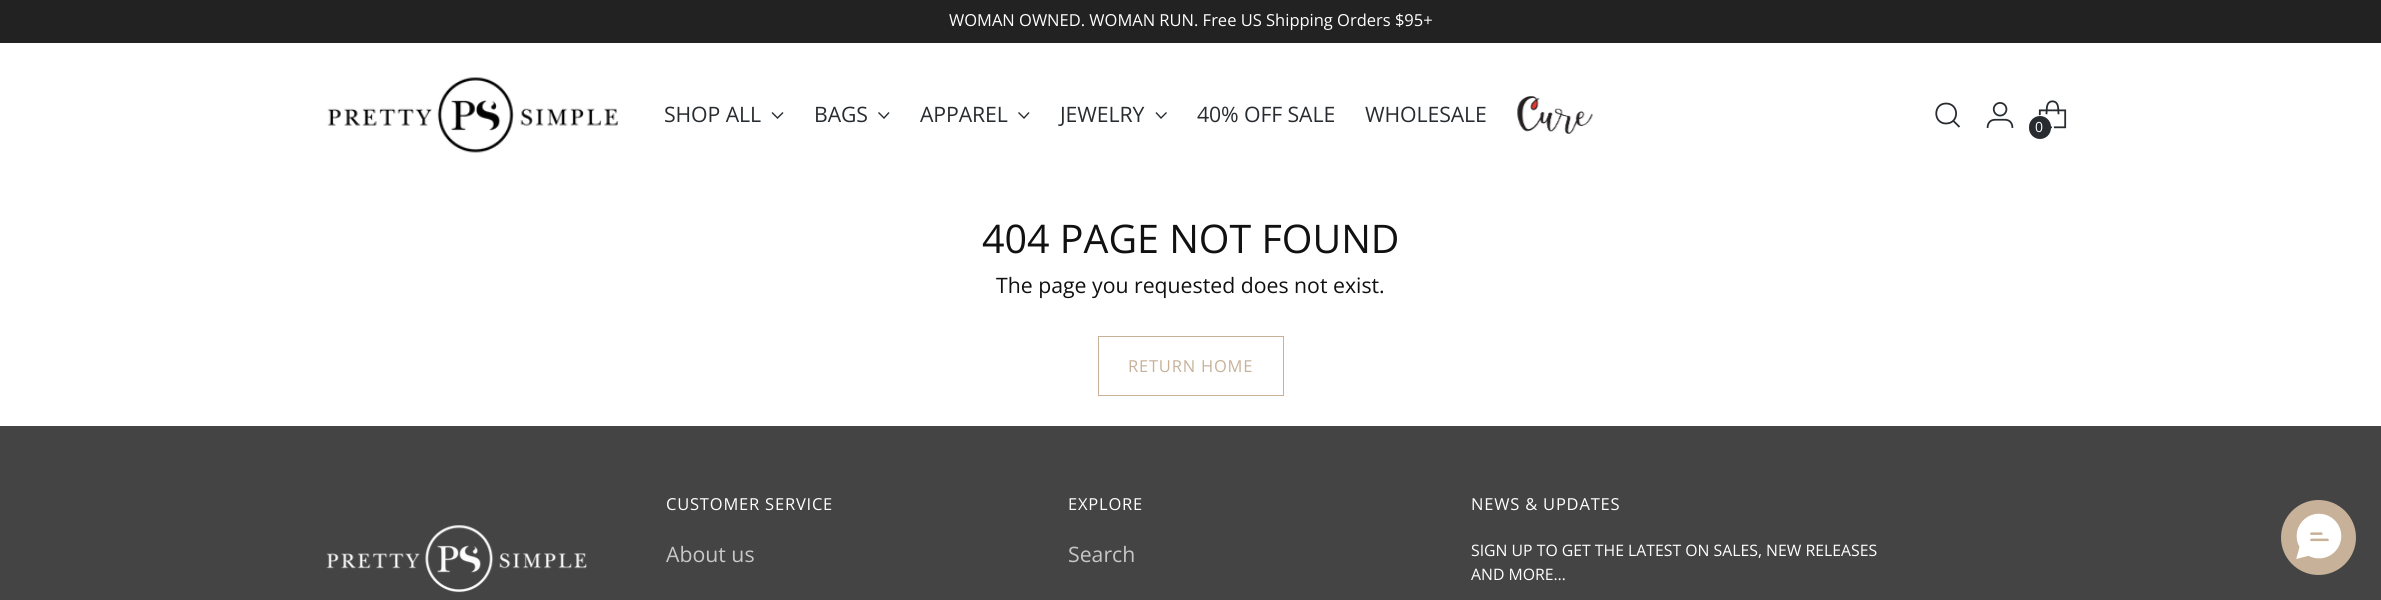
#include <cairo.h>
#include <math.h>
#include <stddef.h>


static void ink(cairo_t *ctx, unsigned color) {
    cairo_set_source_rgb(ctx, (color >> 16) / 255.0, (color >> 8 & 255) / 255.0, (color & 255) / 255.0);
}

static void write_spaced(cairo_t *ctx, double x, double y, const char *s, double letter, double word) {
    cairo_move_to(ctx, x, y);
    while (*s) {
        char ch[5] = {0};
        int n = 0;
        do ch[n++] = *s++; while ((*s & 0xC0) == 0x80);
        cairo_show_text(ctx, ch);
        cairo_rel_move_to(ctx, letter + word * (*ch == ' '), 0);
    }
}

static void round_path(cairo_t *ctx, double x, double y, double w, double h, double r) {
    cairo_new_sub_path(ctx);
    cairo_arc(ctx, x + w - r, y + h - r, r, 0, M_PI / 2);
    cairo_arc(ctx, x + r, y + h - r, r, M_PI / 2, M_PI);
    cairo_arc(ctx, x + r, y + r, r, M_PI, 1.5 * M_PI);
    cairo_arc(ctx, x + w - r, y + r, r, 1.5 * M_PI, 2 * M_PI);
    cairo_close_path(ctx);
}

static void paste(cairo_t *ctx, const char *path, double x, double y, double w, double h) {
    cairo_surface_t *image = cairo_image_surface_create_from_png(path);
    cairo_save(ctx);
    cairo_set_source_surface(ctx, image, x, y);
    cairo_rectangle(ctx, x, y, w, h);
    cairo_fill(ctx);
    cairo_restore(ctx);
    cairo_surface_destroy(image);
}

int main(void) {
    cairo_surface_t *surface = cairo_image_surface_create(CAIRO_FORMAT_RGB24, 2381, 600);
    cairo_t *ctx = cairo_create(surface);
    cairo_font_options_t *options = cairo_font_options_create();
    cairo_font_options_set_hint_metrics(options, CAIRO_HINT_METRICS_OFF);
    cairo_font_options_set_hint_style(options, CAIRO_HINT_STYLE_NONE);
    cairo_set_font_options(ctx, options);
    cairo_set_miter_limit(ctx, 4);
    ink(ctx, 0xFFFFFF);
    cairo_paint(ctx);
    ink(ctx, 0x222222);
    cairo_rectangle(ctx, 0, 0, 2381, 43);
    cairo_fill(ctx);
    cairo_select_font_face(ctx, "Open Sans", CAIRO_FONT_SLANT_NORMAL, CAIRO_FONT_WEIGHT_NORMAL);
    cairo_set_font_size(ctx, 16.5);
    ink(ctx, 0xFFFFFF);
    cairo_move_to(ctx, 949, 26);
    cairo_show_text(ctx, "WOMAN OWNED. WOMAN RUN. Free US Shipping Orders $95+");
    paste(ctx, "media/1.png", 327, 77, 292, 76);
    cairo_set_font_size(ctx, 21.25);
    ink(ctx, 0x282C30);
    write_spaced(ctx, 664, 122, "SHOP ALL", -0.1, 0);
    cairo_new_path(ctx);
    cairo_move_to(ctx, 772, 112.5);
    cairo_line_to(ctx, 777.5, 118);
    cairo_line_to(ctx, 783, 112.5);
    cairo_set_line_width(ctx, 1.4);
    cairo_stroke(ctx);
    write_spaced(ctx, 814, 122, "BAGS", -0.1, 0);
    cairo_new_path(ctx);
    cairo_move_to(ctx, 878.5, 112.5);
    cairo_line_to(ctx, 884, 118);
    cairo_line_to(ctx, 889, 112.5);
    cairo_stroke(ctx);
    write_spaced(ctx, 920, 122, "APPAREL", -0.1, 0);
    cairo_new_path(ctx);
    cairo_move_to(ctx, 1018.5, 112.5);
    cairo_line_to(ctx, 1024, 118);
    cairo_line_to(ctx, 1029, 112.5);
    cairo_stroke(ctx);
    write_spaced(ctx, 1060, 122, "JEWELRY", -0.1, 0);
    cairo_new_path(ctx);
    cairo_move_to(ctx, 1156, 112.5);
    cairo_line_to(ctx, 1161, 118);
    cairo_line_to(ctx, 1166.5, 112.5);
    cairo_stroke(ctx);
    write_spaced(ctx, 1197, 122, "40% OFF SALE", -0.1, 0);
    write_spaced(ctx, 1365, 122, "WHOLESALE", -0.1, 0);
    paste(ctx, "media/2.png", 1517, 96, 76, 38);
    cairo_new_path(ctx);
    cairo_move_to(ctx, 1946, 123.5);
    cairo_curve_to(ctx, 1959.5, 123.5, 1959.5, 103.5, 1946, 103.5);
    cairo_curve_to(ctx, 1933, 103.5, 1933, 123.5, 1946, 123.5);
    cairo_close_path(ctx);
    cairo_set_line_width(ctx, 1.8);
    cairo_set_line_cap(ctx, CAIRO_LINE_CAP_ROUND);
    cairo_stroke(ctx);
    cairo_new_path(ctx);
    cairo_move_to(ctx, 1953.5, 121);
    cairo_line_to(ctx, 1959.5, 127);
    cairo_set_line_cap(ctx, CAIRO_LINE_CAP_BUTT);
    cairo_stroke(ctx);
    paste(ctx, "media/3.png", 1986, 102, 28, 26);
    paste(ctx, "media/4.png", 2038, 100, 29, 29);
    cairo_arc(ctx, 2041, 128, 12, 0, 2 * M_PI);
    ink(ctx, 0xFFFFFF);
    cairo_set_line_width(ctx, 2);
    cairo_stroke(ctx);
    ink(ctx, 0x282C30);
    round_path(ctx, 2029, 116, 22, 23, 11);
    cairo_fill(ctx);
    cairo_set_font_size(ctx, 14);
    ink(ctx, 0xFFFFFF);
    cairo_move_to(ctx, 2035, 132);
    cairo_show_text(ctx, "0");
    cairo_set_font_size(ctx, 39.4);
    ink(ctx, 0x111111);
    cairo_move_to(ctx, 982, 253);
    cairo_show_text(ctx, "404 PAGE NOT FOUND");
    cairo_set_font_size(ctx, 21.25);
    cairo_move_to(ctx, 996, 293);
    cairo_show_text(ctx, "The page you requested does not exist.");
    cairo_rectangle(ctx, 1098.5, 336.5, 185, 59);
    ink(ctx, 0xC7B199);
    cairo_set_line_width(ctx, 1);
    cairo_stroke(ctx);
    cairo_set_font_size(ctx, 16.5);
    write_spaced(ctx, 1128, 372, "RETURN HOME", 0.8, 0);
    ink(ctx, 0x444444);
    cairo_rectangle(ctx, 0, 426, 2381, 174);
    cairo_fill(ctx);
    paste(ctx, "media/5.png", 326, 525, 261, 68);
    ink(ctx, 0xFFFFFF);
    write_spaced(ctx, 666, 510, "CUSTOMER SERVICE", 0.8, 0);
    cairo_set_font_size(ctx, 21.25);
    ink(ctx, 0xC7C7C7);
    cairo_move_to(ctx, 666, 562);
    cairo_show_text(ctx, "About us");
    cairo_set_font_size(ctx, 16.5);
    ink(ctx, 0xFFFFFF);
    write_spaced(ctx, 1068, 510, "EXPLORE", 0.8, 0);
    cairo_set_font_size(ctx, 21.25);
    ink(ctx, 0xC7C7C7);
    cairo_move_to(ctx, 1068, 562);
    cairo_show_text(ctx, "Search");
    cairo_set_font_size(ctx, 16.5);
    ink(ctx, 0xFFFFFF);
    write_spaced(ctx, 1471, 510, "NEWS & UPDATES", 0.8, 0);
    cairo_set_font_size(ctx, 15.8);
    cairo_move_to(ctx, 1471, 556);
    cairo_show_text(ctx, "SIGN UP TO GET THE LATEST ON SALES, NEW RELEASES");
    cairo_move_to(ctx, 1471, 580);
    cairo_show_text(ctx, "AND MORE…");
    ink(ctx, 0xC7B199);
    cairo_new_path(ctx);
    cairo_arc(ctx, 2318.5, 537.5, 37.5, 0, 2 * M_PI);
    cairo_fill(ctx);
    paste(ctx, "media/6.png", 2296, 513, 46, 46);
    cairo_surface_write_to_png(surface, "image.png");
    cairo_font_options_destroy(options);
    cairo_destroy(ctx);
    cairo_surface_destroy(surface);
    return 0;
}
